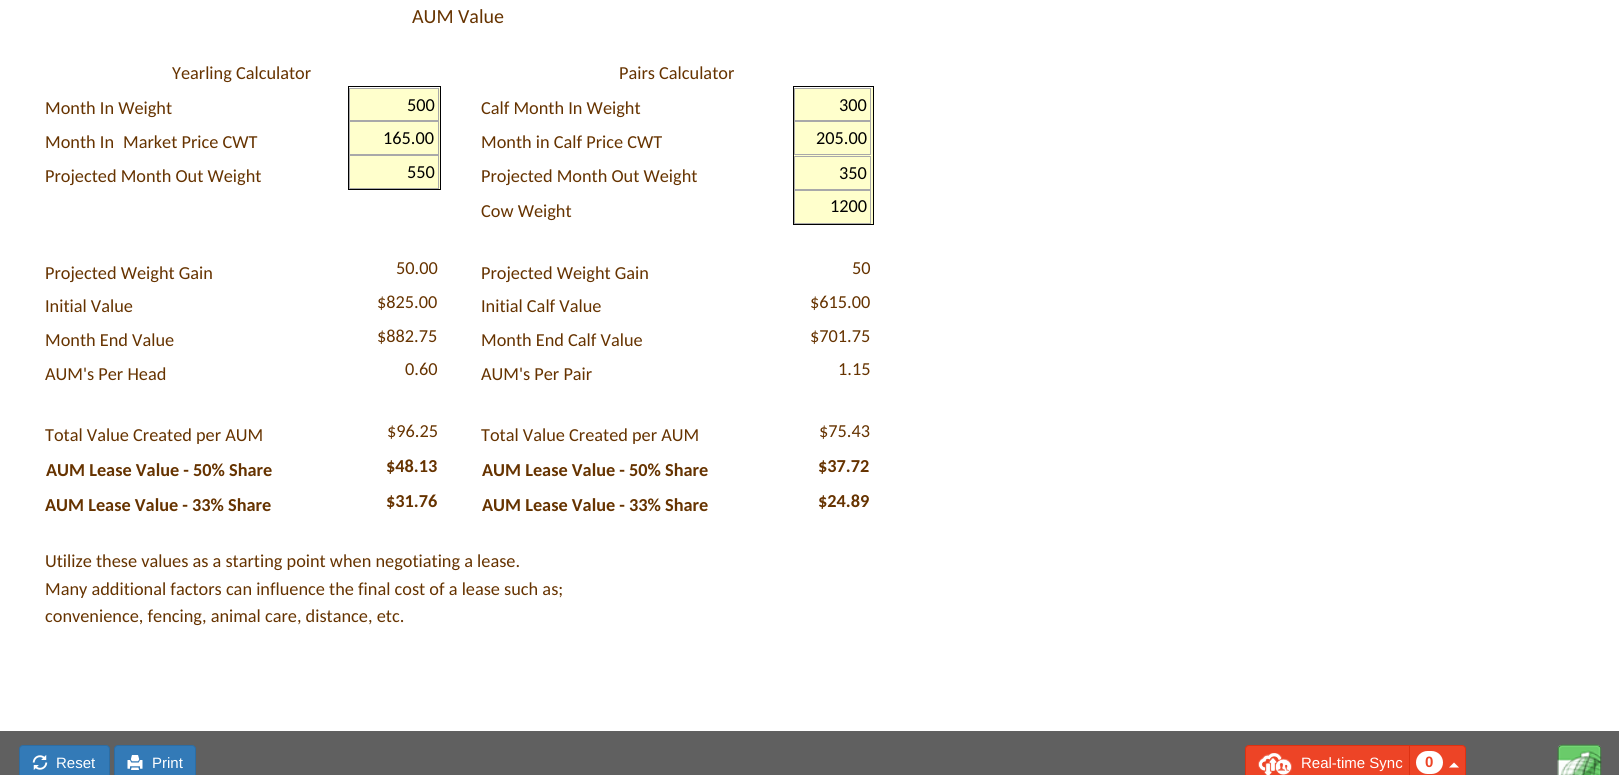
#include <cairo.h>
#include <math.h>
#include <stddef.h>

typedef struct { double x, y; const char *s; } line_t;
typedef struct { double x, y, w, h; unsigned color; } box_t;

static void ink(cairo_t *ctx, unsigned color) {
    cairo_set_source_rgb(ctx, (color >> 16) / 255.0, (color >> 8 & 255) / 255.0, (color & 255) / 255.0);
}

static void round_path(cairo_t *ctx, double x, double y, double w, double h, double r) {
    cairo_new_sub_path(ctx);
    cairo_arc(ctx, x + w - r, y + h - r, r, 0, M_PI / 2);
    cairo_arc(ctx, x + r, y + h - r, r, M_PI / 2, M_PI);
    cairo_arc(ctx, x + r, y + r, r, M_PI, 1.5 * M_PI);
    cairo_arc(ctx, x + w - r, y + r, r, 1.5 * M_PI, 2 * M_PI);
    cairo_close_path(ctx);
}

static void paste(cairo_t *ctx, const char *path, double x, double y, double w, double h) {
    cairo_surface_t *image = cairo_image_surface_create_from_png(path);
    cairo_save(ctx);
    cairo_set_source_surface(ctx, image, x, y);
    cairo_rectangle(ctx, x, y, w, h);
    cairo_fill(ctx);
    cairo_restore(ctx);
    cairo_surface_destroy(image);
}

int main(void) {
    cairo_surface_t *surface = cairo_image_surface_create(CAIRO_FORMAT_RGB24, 1619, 775);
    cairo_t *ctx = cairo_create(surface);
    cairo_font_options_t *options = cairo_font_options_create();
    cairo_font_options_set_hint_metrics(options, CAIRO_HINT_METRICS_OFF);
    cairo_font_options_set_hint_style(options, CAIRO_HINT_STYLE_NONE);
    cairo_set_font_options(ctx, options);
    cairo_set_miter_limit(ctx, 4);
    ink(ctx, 0xFFFFFF);
    cairo_paint(ctx);
    cairo_select_font_face(ctx, "Carlito", CAIRO_FONT_SLANT_NORMAL, CAIRO_FONT_WEIGHT_NORMAL);
    cairo_set_font_size(ctx, 20);
    ink(ctx, 0x663300);
    cairo_move_to(ctx, 412, 23);
    cairo_show_text(ctx, "AUM Value");
    cairo_set_font_size(ctx, 18.3);
    {
        static const line_t items[] = {
            {172, 79, "Yearling Calculator"},
            {619, 79, "Pairs Calculator"},
            {45, 114, "Month In Weight"},
        };
        for (size_t i = 0; i < sizeof items / sizeof *items; i++) {
            cairo_move_to(ctx, items[i].x, items[i].y);
            cairo_show_text(ctx, items[i].s);
        }
    }
    {
        static const box_t items[] = {
            {350, 88, 90, 101, 0xFFFFCC},
            {348, 86, 93, 1, 0x000000},
            {440, 121, 1, 69, 0x000000},
            {440, 86, 1, 37, 0x000000},
            {348, 189, 93, 1, 0x000000},
            {348, 121, 1, 69, 0x000000},
            {348, 86, 1, 37, 0x000000},
        };
        for (size_t i = 0; i < sizeof items / sizeof *items; i++) {
            ink(ctx, items[i].color);
            cairo_rectangle(ctx, items[i].x, items[i].y, items[i].w, items[i].h);
            cairo_fill(ctx);
        }
    }
    cairo_rectangle(ctx, 349.5, 88.5, 89, 32);
    ink(ctx, 0xA9A9A9);
    cairo_set_line_width(ctx, 1);
    cairo_stroke(ctx);
    ink(ctx, 0x000000);
    cairo_move_to(ctx, 407, 111);
    cairo_show_text(ctx, "500");
    ink(ctx, 0x663300);
    cairo_move_to(ctx, 481, 114);
    cairo_show_text(ctx, "Calf Month In Weight");
    {
        static const box_t items[] = {
            {795, 88, 78, 67, 0xFFFFCC},
            {793, 86, 81, 1, 0x000000},
            {873, 121, 1, 104, 0x000000},
            {873, 86, 1, 37, 0x000000},
            {793, 224, 81, 1, 0x000000},
            {793, 121, 1, 104, 0x000000},
            {793, 86, 1, 37, 0x000000},
        };
        for (size_t i = 0; i < sizeof items / sizeof *items; i++) {
            ink(ctx, items[i].color);
            cairo_rectangle(ctx, items[i].x, items[i].y, items[i].w, items[i].h);
            cairo_fill(ctx);
        }
    }
    cairo_rectangle(ctx, 794.5, 88.5, 76, 32);
    ink(ctx, 0xA9A9A9);
    cairo_stroke(ctx);
    ink(ctx, 0x000000);
    cairo_move_to(ctx, 839, 111);
    cairo_show_text(ctx, "300");
    ink(ctx, 0x663300);
    cairo_move_to(ctx, 45, 148);
    cairo_show_text(ctx, "Month In");
    cairo_move_to(ctx, 123, 148);
    cairo_show_text(ctx, "Market Price CWT");
    cairo_rectangle(ctx, 349.5, 121.5, 89, 33);
    ink(ctx, 0xA9A9A9);
    cairo_stroke(ctx);
    ink(ctx, 0x000000);
    cairo_move_to(ctx, 383, 144);
    cairo_show_text(ctx, "165.00");
    ink(ctx, 0x663300);
    cairo_move_to(ctx, 481, 148);
    cairo_show_text(ctx, "Month in Calf Price CWT");
    cairo_rectangle(ctx, 794.5, 121.5, 76, 33);
    ink(ctx, 0xA9A9A9);
    cairo_stroke(ctx);
    ink(ctx, 0x000000);
    cairo_move_to(ctx, 816, 144);
    cairo_show_text(ctx, "205.00");
    ink(ctx, 0x663300);
    cairo_move_to(ctx, 45, 182);
    cairo_show_text(ctx, "Projected Month Out Weight");
    cairo_rectangle(ctx, 349.5, 155.5, 89, 33);
    ink(ctx, 0xA9A9A9);
    cairo_stroke(ctx);
    ink(ctx, 0x000000);
    cairo_move_to(ctx, 407, 178);
    cairo_show_text(ctx, "550");
    ink(ctx, 0x663300);
    cairo_move_to(ctx, 481, 182);
    cairo_show_text(ctx, "Projected Month Out Weight");
    ink(ctx, 0xFFFFCC);
    cairo_rectangle(ctx, 794, 155, 79, 35);
    cairo_fill(ctx);
    cairo_rectangle(ctx, 794.5, 156.5, 76, 33);
    ink(ctx, 0xA9A9A9);
    cairo_stroke(ctx);
    ink(ctx, 0x000000);
    cairo_move_to(ctx, 839, 179);
    cairo_show_text(ctx, "350");
    ink(ctx, 0x663300);
    cairo_move_to(ctx, 481, 217);
    cairo_show_text(ctx, "Cow Weight");
    ink(ctx, 0xFFFFCC);
    cairo_rectangle(ctx, 795, 190, 78, 34);
    cairo_fill(ctx);
    cairo_rectangle(ctx, 794.5, 190.5, 76, 33);
    ink(ctx, 0xA9A9A9);
    cairo_stroke(ctx);
    ink(ctx, 0x000000);
    cairo_move_to(ctx, 830, 212);
    cairo_show_text(ctx, "1200");
    ink(ctx, 0x663300);
    {
        static const line_t items[] = {
            {45, 279, "Projected Weight Gain"},
            {396, 274, "50.00"},
            {481, 279, "Projected Weight Gain"},
            {852, 274, "50"},
            {45, 312, "Initial Value"},
            {377, 308, "$825.00"},
            {481, 312, "Initial Calf Value"},
            {810, 308, "$615.00"},
            {45, 346, "Month End Value"},
            {377, 342, "$882.75"},
            {481, 346, "Month End Calf Value"},
            {810, 342, "$701.75"},
            {45, 380, "AUM's Per Head"},
            {405, 375, "0.60"},
            {481, 380, "AUM's Per Pair"},
            {838, 375, "1.15"},
            {45, 441, "Total Value Created per AUM"},
            {387, 437, "$96.25"},
            {481, 441, "Total Value Created per AUM"},
            {819, 437, "$75.43"},
        };
        for (size_t i = 0; i < sizeof items / sizeof *items; i++) {
            cairo_move_to(ctx, items[i].x, items[i].y);
            cairo_show_text(ctx, items[i].s);
        }
    }
    cairo_select_font_face(ctx, "Carlito", CAIRO_FONT_SLANT_NORMAL, CAIRO_FONT_WEIGHT_BOLD);
    {
        static const line_t items[] = {
            {46, 476, "AUM Lease Value - 50% Share"},
            {386, 472, "$48.13"},
            {482, 476, "AUM Lease Value - 50% Share"},
            {818, 472, "$37.72"},
            {45, 511, "AUM Lease Value - 33% Share"},
            {386, 507, "$31.76"},
            {482, 511, "AUM Lease Value - 33% Share"},
            {818, 507, "$24.89"},
        };
        for (size_t i = 0; i < sizeof items / sizeof *items; i++) {
            cairo_move_to(ctx, items[i].x, items[i].y);
            cairo_show_text(ctx, items[i].s);
        }
    }
    cairo_select_font_face(ctx, "Carlito", CAIRO_FONT_SLANT_NORMAL, CAIRO_FONT_WEIGHT_NORMAL);
    {
        static const line_t items[] = {
            {45, 567, "Utilize these values as a starting point when negotiating a lease."},
            {45, 595, "Many additional factors can influence the final cost of a lease such as;"},
            {45, 622, "convenience, fencing, animal care, distance, etc."},
        };
        for (size_t i = 0; i < sizeof items / sizeof *items; i++) {
            cairo_move_to(ctx, items[i].x, items[i].y);
            cairo_show_text(ctx, items[i].s);
        }
    }
    ink(ctx, 0x606060);
    cairo_rectangle(ctx, 0, 731, 1619, 44);
    cairo_fill(ctx);
    ink(ctx, 0x337AB7);
    round_path(ctx, 19.5, 745.5, 90, 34, 3.5);
    cairo_fill_preserve(ctx);
    ink(ctx, 0x2D6DA3);
    cairo_stroke(ctx);
    paste(ctx, "media/1.png", 32, 755, 16, 15);
    cairo_select_font_face(ctx, "Liberation Sans", CAIRO_FONT_SLANT_NORMAL, CAIRO_FONT_WEIGHT_NORMAL);
    cairo_set_font_size(ctx, 15);
    ink(ctx, 0xFFFFFF);
    cairo_move_to(ctx, 56, 768);
    cairo_show_text(ctx, "Reset");
    ink(ctx, 0x337AB7);
    round_path(ctx, 114.5, 745.5, 81, 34, 3.5);
    cairo_fill_preserve(ctx);
    ink(ctx, 0x2D6DA3);
    cairo_stroke(ctx);
    paste(ctx, "media/2.png", 127, 755, 16, 15);
    ink(ctx, 0xFFFFFF);
    cairo_move_to(ctx, 152, 768);
    cairo_show_text(ctx, "Print");
    ink(ctx, 0xED4426);
    cairo_new_path(ctx);
    cairo_move_to(ctx, 1249, 745.5);
    cairo_line_to(ctx, 1409.5, 745.5);
    cairo_line_to(ctx, 1409.5, 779.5);
    cairo_line_to(ctx, 1249, 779.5);
    cairo_curve_to(ctx, 1247, 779.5, 1245.5, 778, 1245.5, 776);
    cairo_line_to(ctx, 1245.5, 749);
    cairo_curve_to(ctx, 1245.5, 747, 1247, 745.5, 1249, 745.5);
    cairo_close_path(ctx);
    cairo_fill_preserve(ctx);
    ink(ctx, 0xDD3112);
    cairo_stroke(ctx);
    paste(ctx, "media/3.png", 1258, 753, 34, 22);
    paste(ctx, "media/4.png", 1259, 754, 32, 21);
    ink(ctx, 0xFFFFFF);
    cairo_move_to(ctx, 1301, 768);
    cairo_show_text(ctx, "Real-time Sync");
    ink(ctx, 0xED4426);
    cairo_new_path(ctx);
    cairo_move_to(ctx, 1409.5, 745.5);
    cairo_line_to(ctx, 1462, 745.5);
    cairo_curve_to(ctx, 1464, 745.5, 1465.5, 747, 1465.5, 749);
    cairo_line_to(ctx, 1465.5, 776);
    cairo_curve_to(ctx, 1465.5, 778, 1464, 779.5, 1462, 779.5);
    cairo_line_to(ctx, 1409.5, 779.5);
    cairo_close_path(ctx);
    cairo_fill_preserve(ctx);
    ink(ctx, 0xDD3112);
    cairo_stroke(ctx);
    ink(ctx, 0xFFFFFF);
    round_path(ctx, 1416, 751, 27, 23, 11.5);
    cairo_fill(ctx);
    cairo_select_font_face(ctx, "Liberation Sans", CAIRO_FONT_SLANT_NORMAL, CAIRO_FONT_WEIGHT_BOLD);
    ink(ctx, 0xED4426);
    cairo_move_to(ctx, 1425, 767);
    cairo_show_text(ctx, "0");
    ink(ctx, 0xFFFFFF);
    cairo_new_path(ctx);
    cairo_move_to(ctx, 1459, 767.5);
    cairo_line_to(ctx, 1449, 767.5);
    cairo_line_to(ctx, 1454, 762.5);
    cairo_close_path(ctx);
    cairo_fill(ctx);
    paste(ctx, "media/5.png", 1557, 744, 45, 31);
    cairo_surface_write_to_png(surface, "image.png");
    cairo_font_options_destroy(options);
    cairo_destroy(ctx);
    cairo_surface_destroy(surface);
    return 0;
}
